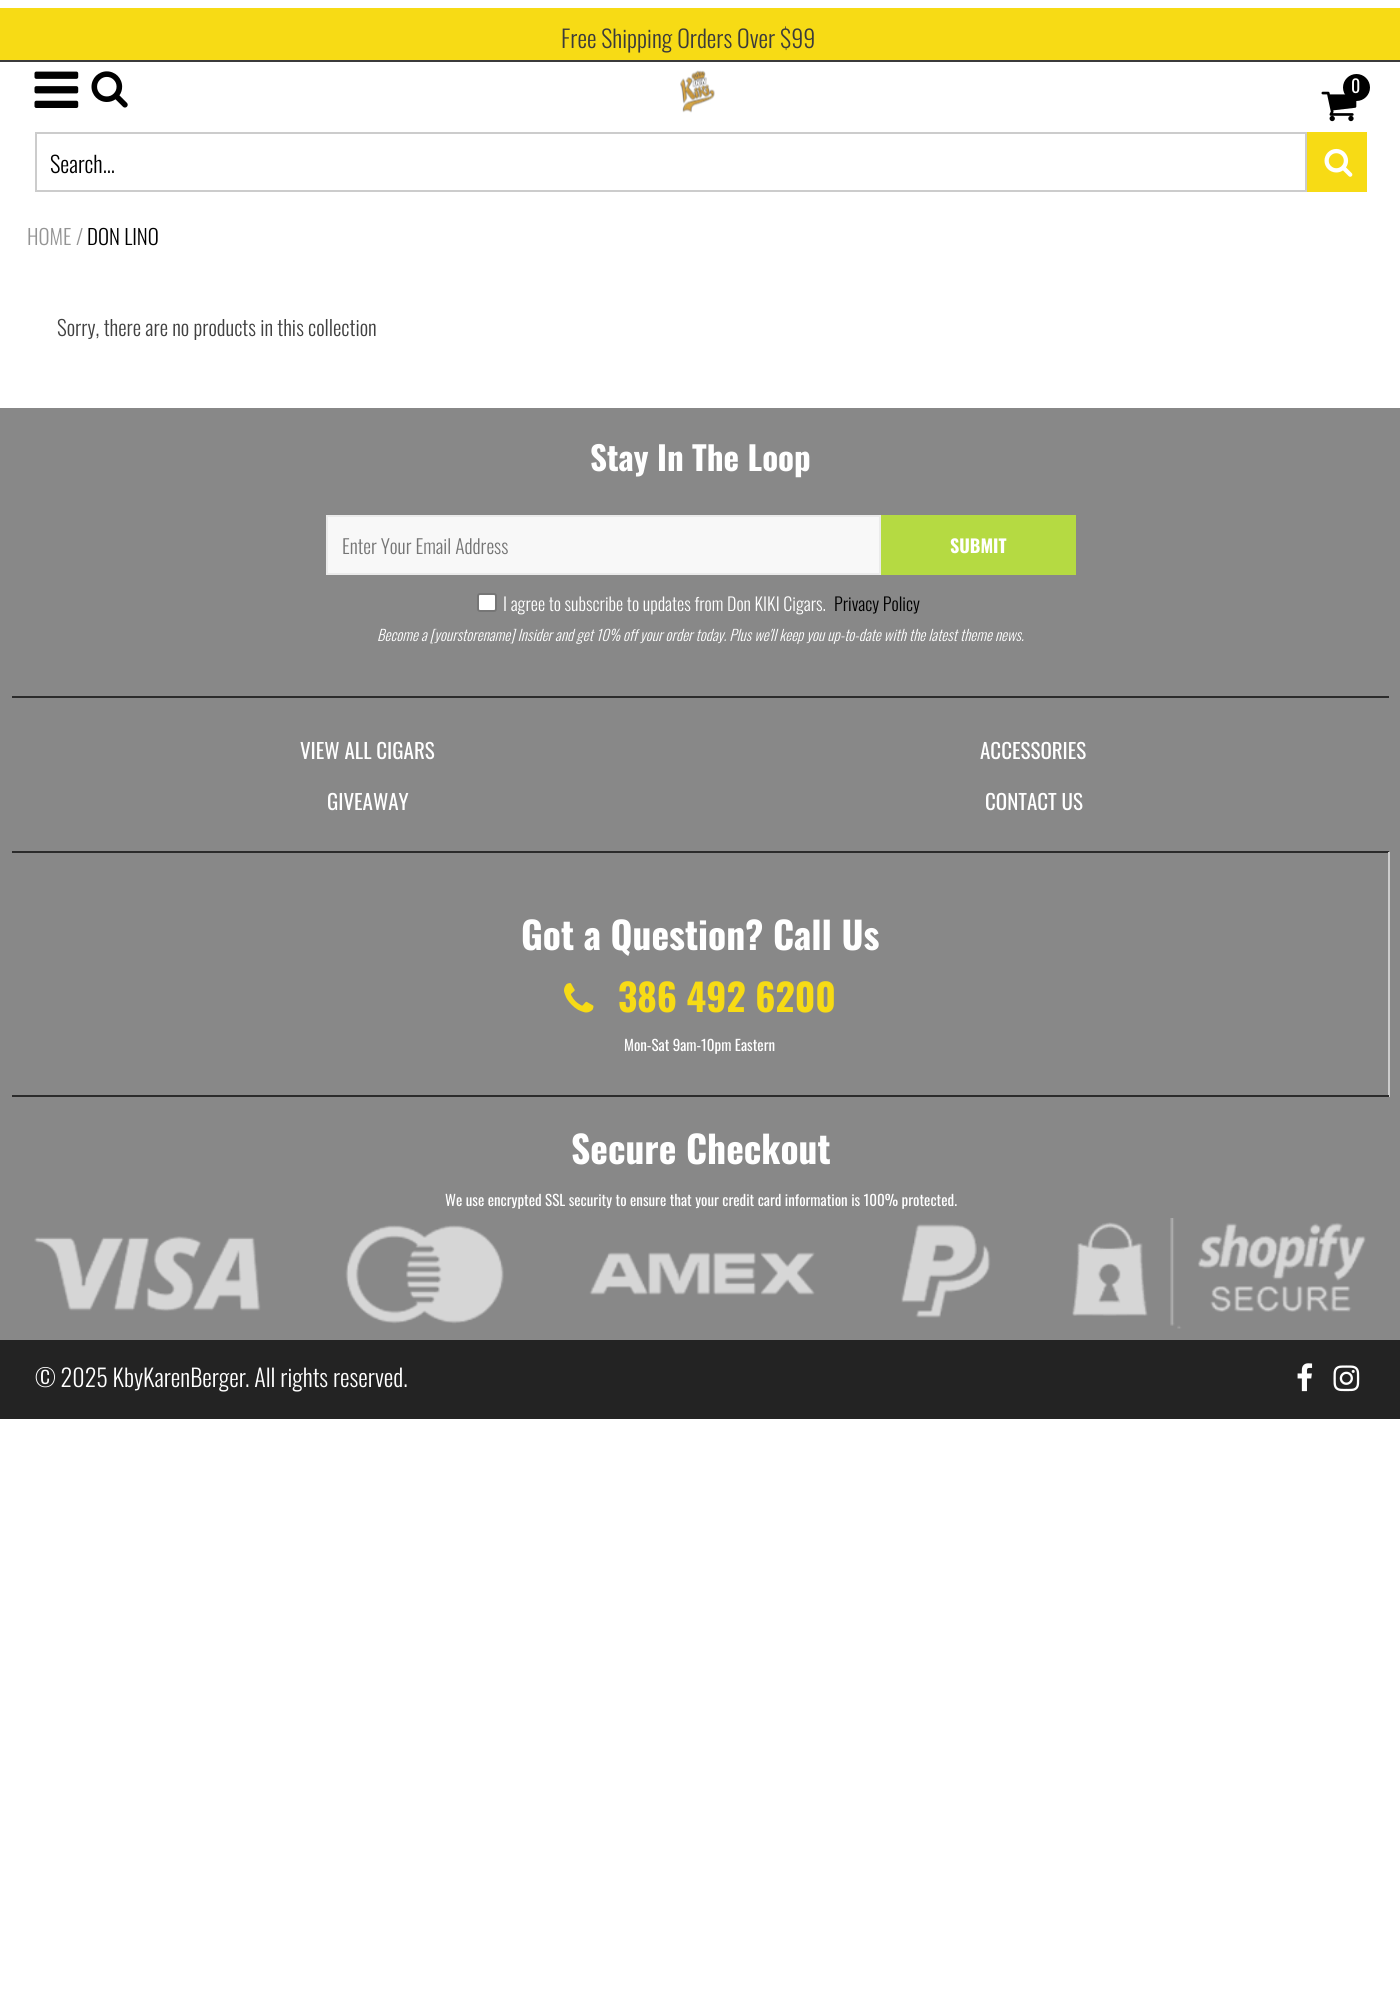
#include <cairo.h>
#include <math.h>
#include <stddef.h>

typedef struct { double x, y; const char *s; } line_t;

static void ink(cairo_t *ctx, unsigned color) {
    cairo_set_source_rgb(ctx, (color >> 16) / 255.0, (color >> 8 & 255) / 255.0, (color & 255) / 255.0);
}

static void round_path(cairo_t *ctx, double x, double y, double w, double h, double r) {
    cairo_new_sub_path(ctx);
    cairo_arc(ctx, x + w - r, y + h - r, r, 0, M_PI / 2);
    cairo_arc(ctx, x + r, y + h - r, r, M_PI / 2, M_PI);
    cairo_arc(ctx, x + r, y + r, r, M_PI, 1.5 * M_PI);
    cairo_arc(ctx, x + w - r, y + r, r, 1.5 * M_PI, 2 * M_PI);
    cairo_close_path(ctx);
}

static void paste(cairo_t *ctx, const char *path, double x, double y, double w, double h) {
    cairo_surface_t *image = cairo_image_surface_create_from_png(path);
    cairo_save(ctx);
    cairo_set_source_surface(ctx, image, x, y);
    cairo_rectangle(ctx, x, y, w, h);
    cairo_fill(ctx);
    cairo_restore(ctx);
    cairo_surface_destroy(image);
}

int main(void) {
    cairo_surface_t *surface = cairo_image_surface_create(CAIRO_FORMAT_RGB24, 1400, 2010);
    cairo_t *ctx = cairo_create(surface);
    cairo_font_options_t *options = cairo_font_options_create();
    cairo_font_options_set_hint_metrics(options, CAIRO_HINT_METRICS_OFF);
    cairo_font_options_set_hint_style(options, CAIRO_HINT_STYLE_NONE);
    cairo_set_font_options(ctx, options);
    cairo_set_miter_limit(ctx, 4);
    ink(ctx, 0xFFFFFF);
    cairo_paint(ctx);
    ink(ctx, 0xF7DB15);
    cairo_rectangle(ctx, 0, 8, 1400, 52);
    cairo_fill(ctx);
    ink(ctx, 0x3B3B3B);
    cairo_rectangle(ctx, 0, 60, 1400, 2);
    cairo_fill(ctx);
    cairo_select_font_face(ctx, "Oswald Light", CAIRO_FONT_SLANT_NORMAL, CAIRO_FONT_WEIGHT_NORMAL);
    cairo_set_font_size(ctx, 24);
    cairo_move_to(ctx, 561, 48);
    cairo_show_text(ctx, "Free Shipping Orders Over $99");
    paste(ctx, "media/1.png", 34, 71, 45, 37);
    paste(ctx, "media/2.png", 91, 71, 37, 37);
    paste(ctx, "media/3.png", 680, 70, 35, 43);
    paste(ctx, "media/4.png", 1321, 91, 36, 31);
    ink(ctx, 0x000000);
    cairo_arc(ctx, 1356.5, 87.5, 13.5, 0, 2 * M_PI);
    cairo_fill(ctx);
    cairo_select_font_face(ctx, "Oswald", CAIRO_FONT_SLANT_NORMAL, CAIRO_FONT_WEIGHT_NORMAL);
    cairo_set_font_size(ctx, 18);
    ink(ctx, 0xFFFFFF);
    cairo_move_to(ctx, 1351, 93);
    cairo_show_text(ctx, "0");
    cairo_rectangle(ctx, 36, 133, 1270, 58);
    ink(ctx, 0xCCCCCC);
    cairo_stroke(ctx);
    cairo_select_font_face(ctx, "Oswald Light", CAIRO_FONT_SLANT_NORMAL, CAIRO_FONT_WEIGHT_NORMAL);
    cairo_set_font_size(ctx, 22.5);
    ink(ctx, 0x000000);
    cairo_move_to(ctx, 50, 173);
    cairo_show_text(ctx, "Search...");
    ink(ctx, 0xF7DB15);
    cairo_rectangle(ctx, 1307, 132, 60, 60);
    cairo_fill(ctx);
    paste(ctx, "media/5.png", 1324, 148, 29, 29);
    cairo_set_font_size(ctx, 21);
    ink(ctx, 0x949494);
    cairo_move_to(ctx, 27, 245);
    cairo_show_text(ctx, "HOME");
    cairo_move_to(ctx, 76, 245);
    cairo_show_text(ctx, "/");
    ink(ctx, 0x000000);
    cairo_move_to(ctx, 87, 245);
    cairo_show_text(ctx, "DON LINO");
    ink(ctx, 0x414141);
    cairo_move_to(ctx, 57, 336);
    cairo_show_text(ctx, "Sorry, there are no products in this collection");
    ink(ctx, 0x888888);
    cairo_rectangle(ctx, 0, 408, 1400, 932);
    cairo_fill(ctx);
    cairo_select_font_face(ctx, "Oswald", CAIRO_FONT_SLANT_NORMAL, CAIRO_FONT_WEIGHT_BOLD);
    cairo_set_font_size(ctx, 33);
    ink(ctx, 0xFFFFFF);
    cairo_move_to(ctx, 590, 471);
    cairo_show_text(ctx, "Stay In The Loop");
    ink(ctx, 0xF8F8F8);
    cairo_rectangle(ctx, 327, 516, 553, 58);
    cairo_fill_preserve(ctx);
    ink(ctx, 0xEBEBEB);
    cairo_stroke(ctx);
    cairo_select_font_face(ctx, "Oswald Light", CAIRO_FONT_SLANT_NORMAL, CAIRO_FONT_WEIGHT_NORMAL);
    cairo_set_font_size(ctx, 19.5);
    ink(ctx, 0x757575);
    cairo_move_to(ctx, 342, 554);
    cairo_show_text(ctx, "Enter Your Email Address");
    ink(ctx, 0xB5DA42);
    cairo_rectangle(ctx, 881, 515, 195, 60);
    cairo_fill(ctx);
    cairo_select_font_face(ctx, "Oswald", CAIRO_FONT_SLANT_NORMAL, CAIRO_FONT_WEIGHT_BOLD);
    cairo_set_font_size(ctx, 18);
    ink(ctx, 0xFFFFFF);
    cairo_move_to(ctx, 950, 553);
    cairo_show_text(ctx, "SUBMIT");
    round_path(ctx, 478, 594, 18, 17, 2);
    cairo_fill_preserve(ctx);
    ink(ctx, 0x767676);
    cairo_stroke(ctx);
    cairo_select_font_face(ctx, "Oswald Light", CAIRO_FONT_SLANT_NORMAL, CAIRO_FONT_WEIGHT_NORMAL);
    ink(ctx, 0xFFFFFF);
    cairo_move_to(ctx, 503, 611);
    cairo_show_text(ctx, "I agree to subscribe to updates from Don KIKI Cigars.");
    ink(ctx, 0x000000);
    cairo_move_to(ctx, 834, 611);
    cairo_show_text(ctx, "Privacy Policy");
    cairo_select_font_face(ctx, "Oswald Light", CAIRO_FONT_SLANT_ITALIC, CAIRO_FONT_WEIGHT_NORMAL);
    cairo_set_font_size(ctx, 15);
    ink(ctx, 0xFFFFFF);
    cairo_move_to(ctx, 377, 641);
    cairo_show_text(ctx, "Become a [yourstorename] Insider and get 10% off your order today. Plus we'll keep you up-to-date with the latest theme news.");
    ink(ctx, 0x2B2B2B);
    cairo_rectangle(ctx, 12, 696, 1377, 2);
    cairo_fill(ctx);
    cairo_rectangle(ctx, 12, 851, 1377, 2);
    cairo_fill(ctx);
    cairo_select_font_face(ctx, "Oswald", CAIRO_FONT_SLANT_NORMAL, CAIRO_FONT_WEIGHT_NORMAL);
    cairo_set_font_size(ctx, 21);
    ink(ctx, 0xFFFFFF);
    {
        static const line_t items[] = {
            {300, 759, "VIEW ALL CIGARS"},
            {980, 759, "ACCESSORIES"},
            {327, 810, "GIVEAWAY"},
            {985, 810, "CONTACT US"},
        };
        for (size_t i = 0; i < sizeof items / sizeof *items; i++) {
            cairo_move_to(ctx, items[i].x, items[i].y);
            cairo_show_text(ctx, items[i].s);
        }
    }
    ink(ctx, 0xCCCCCC);
    cairo_rectangle(ctx, 1388, 852, 2, 245);
    cairo_fill(ctx);
    ink(ctx, 0x2B2B2B);
    cairo_rectangle(ctx, 12, 1095, 1377, 2);
    cairo_fill(ctx);
    cairo_select_font_face(ctx, "Oswald", CAIRO_FONT_SLANT_NORMAL, CAIRO_FONT_WEIGHT_BOLD);
    cairo_set_font_size(ctx, 37.5);
    ink(ctx, 0xFFFFFF);
    cairo_move_to(ctx, 521, 950);
    cairo_show_text(ctx, "Got a Question? Call Us");
    paste(ctx, "media/6.png", 564, 983, 30, 30);
    ink(ctx, 0xF7DB15);
    cairo_move_to(ctx, 618, 1012);
    cairo_show_text(ctx, "386 492 6200");
    cairo_select_font_face(ctx, "Oswald", CAIRO_FONT_SLANT_NORMAL, CAIRO_FONT_WEIGHT_NORMAL);
    cairo_set_font_size(ctx, 15);
    ink(ctx, 0xFFFFFF);
    cairo_move_to(ctx, 624, 1051);
    cairo_show_text(ctx, "Mon-Sat 9am-10pm Eastern");
    cairo_select_font_face(ctx, "Oswald", CAIRO_FONT_SLANT_NORMAL, CAIRO_FONT_WEIGHT_BOLD);
    cairo_set_font_size(ctx, 37.5);
    cairo_move_to(ctx, 571, 1164);
    cairo_show_text(ctx, "Secure Checkout");
    cairo_select_font_face(ctx, "Oswald", CAIRO_FONT_SLANT_NORMAL, CAIRO_FONT_WEIGHT_NORMAL);
    cairo_set_font_size(ctx, 15);
    cairo_move_to(ctx, 445, 1206);
    cairo_show_text(ctx, "We use encrypted SSL security to ensure that your credit card information is 100% protected.");
    paste(ctx, "media/7.png", 34, 1218, 1332, 111);
    ink(ctx, 0x232323);
    cairo_rectangle(ctx, 0, 1340, 1400, 79);
    cairo_fill(ctx);
    cairo_select_font_face(ctx, "Oswald Light", CAIRO_FONT_SLANT_NORMAL, CAIRO_FONT_WEIGHT_NORMAL);
    cairo_set_font_size(ctx, 24);
    ink(ctx, 0xFFFFFF);
    cairo_move_to(ctx, 35, 1387);
    cairo_show_text(ctx, "© 2025 KbyKarenBerger");
    cairo_move_to(ctx, 245, 1387);
    cairo_show_text(ctx, ". All rights reserved.");
    paste(ctx, "media/8.png", 1297, 1363, 16, 29);
    paste(ctx, "media/9.png", 1333, 1365, 27, 27);
    cairo_surface_write_to_png(surface, "image.png");
    cairo_font_options_destroy(options);
    cairo_destroy(ctx);
    cairo_surface_destroy(surface);
    return 0;
}
